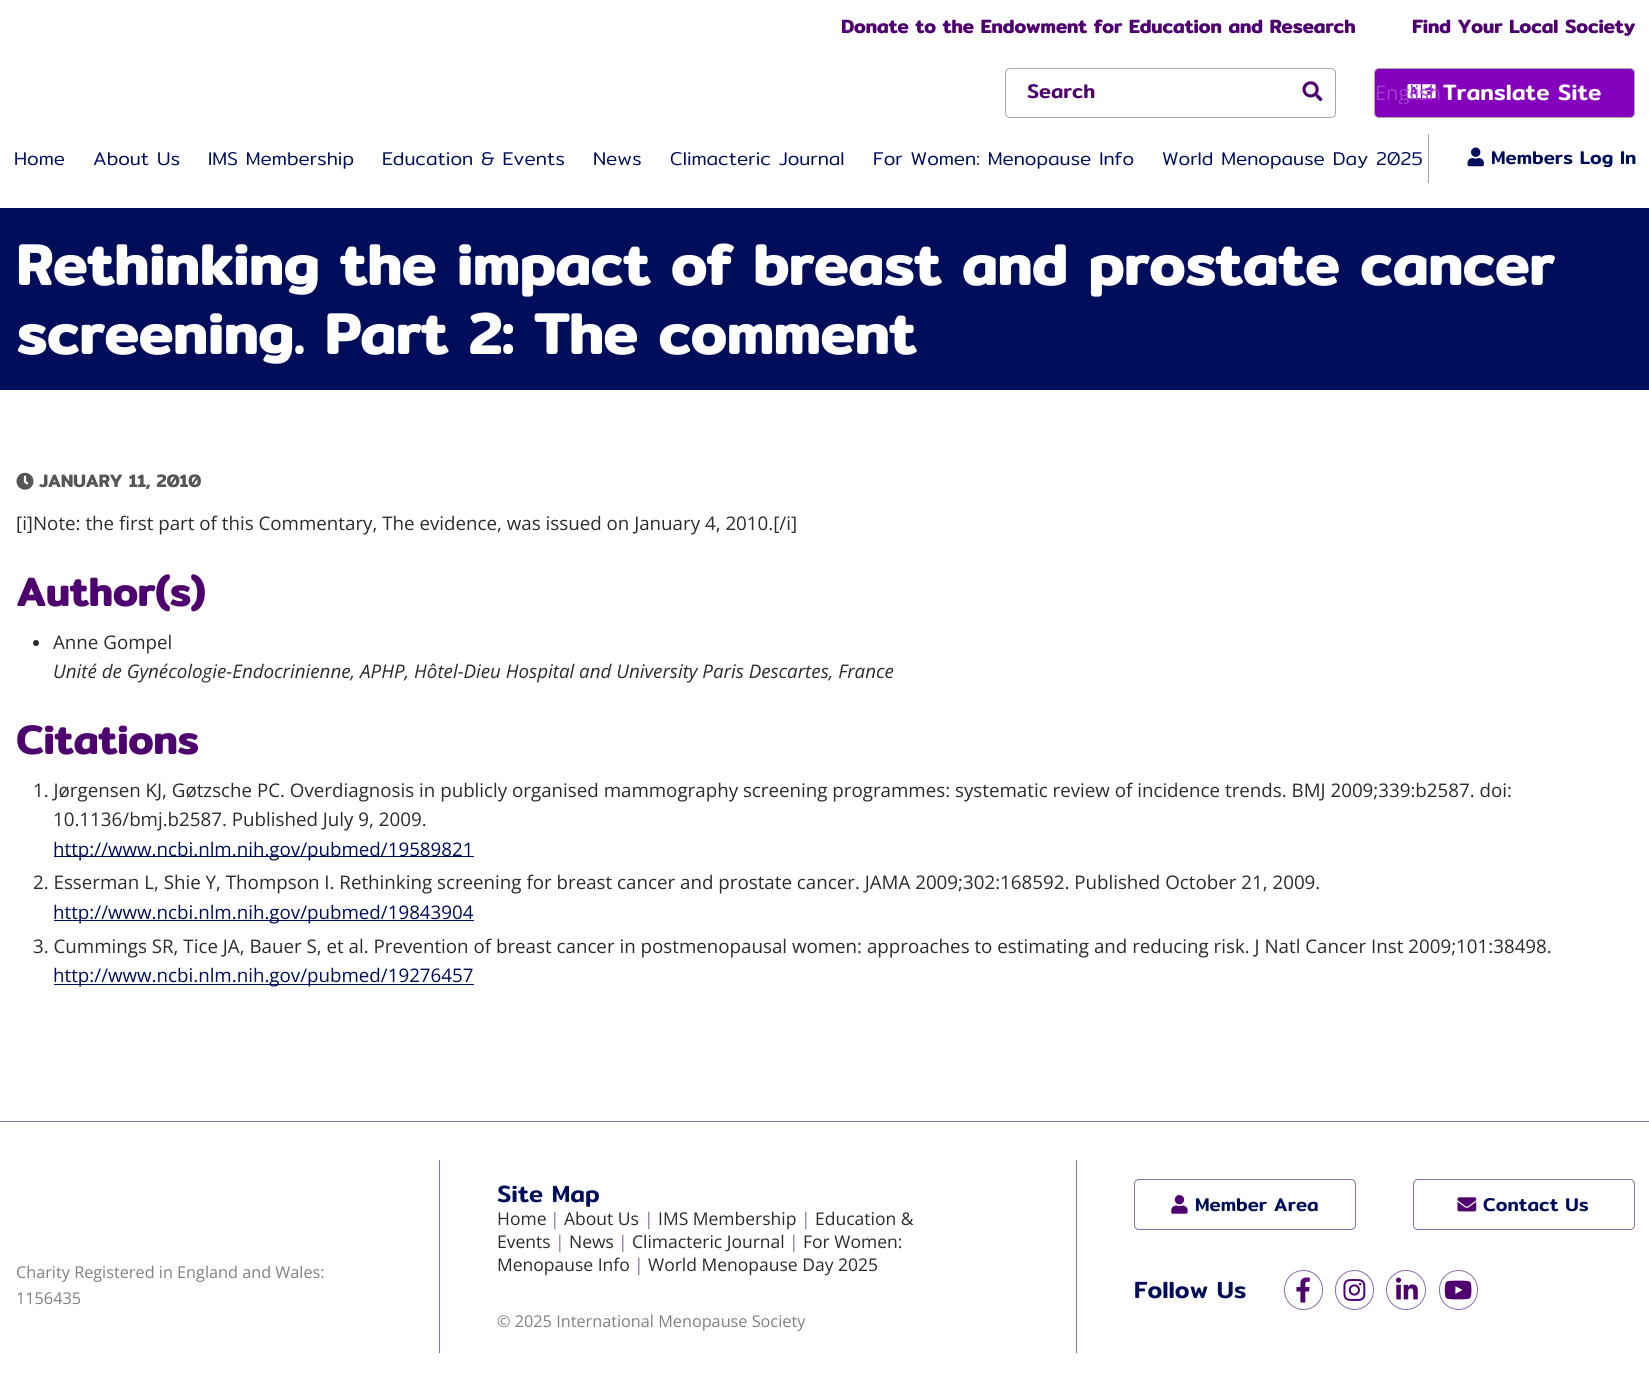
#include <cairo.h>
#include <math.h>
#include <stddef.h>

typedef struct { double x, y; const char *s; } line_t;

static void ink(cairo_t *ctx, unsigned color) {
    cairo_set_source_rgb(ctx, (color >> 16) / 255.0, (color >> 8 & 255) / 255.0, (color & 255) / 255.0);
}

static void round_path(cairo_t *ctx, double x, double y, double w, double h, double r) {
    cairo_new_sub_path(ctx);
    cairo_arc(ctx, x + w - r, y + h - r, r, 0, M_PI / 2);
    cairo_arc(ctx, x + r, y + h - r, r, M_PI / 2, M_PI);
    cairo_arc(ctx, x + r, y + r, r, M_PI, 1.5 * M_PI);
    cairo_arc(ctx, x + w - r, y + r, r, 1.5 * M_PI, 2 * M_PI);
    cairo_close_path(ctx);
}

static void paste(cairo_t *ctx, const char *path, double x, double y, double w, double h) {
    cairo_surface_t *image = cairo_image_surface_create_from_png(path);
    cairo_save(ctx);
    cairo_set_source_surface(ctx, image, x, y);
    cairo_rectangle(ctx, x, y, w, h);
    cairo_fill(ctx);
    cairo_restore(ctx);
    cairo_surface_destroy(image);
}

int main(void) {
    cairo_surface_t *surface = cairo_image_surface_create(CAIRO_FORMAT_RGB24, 1649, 1390);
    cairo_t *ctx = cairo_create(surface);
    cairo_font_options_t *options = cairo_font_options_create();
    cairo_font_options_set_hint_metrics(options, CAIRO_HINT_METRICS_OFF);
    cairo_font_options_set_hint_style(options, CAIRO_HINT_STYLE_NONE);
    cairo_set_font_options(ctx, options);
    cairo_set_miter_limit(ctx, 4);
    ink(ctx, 0xFFFFFF);
    cairo_paint(ctx);
    cairo_select_font_face(ctx, "Mitr", CAIRO_FONT_SLANT_NORMAL, CAIRO_FONT_WEIGHT_BOLD);
    cairo_set_font_size(ctx, 18.75);
    ink(ctx, 0x4F006F);
    cairo_move_to(ctx, 841, 33);
    cairo_show_text(ctx, "Donate to the Endowment for Education and Research");
    cairo_move_to(ctx, 1412, 33);
    cairo_show_text(ctx, "Find Your Local Society");
    round_path(ctx, 1005.5, 68.5, 330, 49, 4.5);
    ink(ctx, 0xA9A9A9);
    cairo_set_line_width(ctx, 1);
    cairo_stroke(ctx);
    cairo_select_font_face(ctx, "Mitr Medium", CAIRO_FONT_SLANT_NORMAL, CAIRO_FONT_WEIGHT_NORMAL);
    cairo_set_font_size(ctx, 20);
    ink(ctx, 0x4F006F);
    cairo_move_to(ctx, 1027, 98);
    cairo_show_text(ctx, "Search");
    paste(ctx, "media/1.png", 1302, 81, 21, 21);
    ink(ctx, 0x8500BC);
    round_path(ctx, 1374.5, 68.5, 260, 49, 4.5);
    cairo_fill_preserve(ctx);
    ink(ctx, 0xA9A9A9);
    cairo_stroke(ctx);
    paste(ctx, "media/2.png", 1407, 84, 29, 15);
    cairo_save(ctx);
    cairo_rectangle(ctx, 1375, 81, 259, 23);
    cairo_clip(ctx);
    cairo_select_font_face(ctx, "Open Sans", CAIRO_FONT_SLANT_NORMAL, CAIRO_FONT_WEIGHT_NORMAL);
    ink(ctx, 0xA33ECC);
    cairo_move_to(ctx, 1375, 100);
    cairo_show_text(ctx, "English");
    cairo_restore(ctx);
    cairo_set_font_size(ctx, 22.5);
    ink(ctx, 0xFFFFFF);
    cairo_move_to(ctx, 1443, 100);
    cairo_show_text(ctx, "Translate Site");
    ink(ctx, 0xA9A9A9);
    cairo_rectangle(ctx, 1428, 134, 1, 49);
    cairo_fill(ctx);
    cairo_select_font_face(ctx, "Mitr Light", CAIRO_FONT_SLANT_NORMAL, CAIRO_FONT_WEIGHT_NORMAL);
    cairo_set_font_size(ctx, 18.75);
    ink(ctx, 0x000D5B);
    {
        static const line_t items[] = {
            {14, 165, "Home"},
            {93, 165, "About Us"},
            {208, 165, "IMS Membership"},
            {382, 165, "Education & Events"},
            {593, 165, "News"},
            {670, 165, "Climacteric Journal"},
            {873, 165, "For Women: Menopause Info"},
            {1162, 165, "World Menopause Day 2025"},
        };
        for (size_t i = 0; i < sizeof items / sizeof *items; i++) {
            cairo_move_to(ctx, items[i].x, items[i].y);
            cairo_show_text(ctx, items[i].s);
        }
    }
    paste(ctx, "media/3.png", 1467, 147, 17, 20);
    cairo_select_font_face(ctx, "Mitr Medium", CAIRO_FONT_SLANT_NORMAL, CAIRO_FONT_WEIGHT_NORMAL);
    cairo_move_to(ctx, 1491, 164);
    cairo_show_text(ctx, "Members Log In");
    cairo_rectangle(ctx, 0, 208, 1649, 182);
    cairo_fill(ctx);
    cairo_select_font_face(ctx, "Mitr", CAIRO_FONT_SLANT_NORMAL, CAIRO_FONT_WEIGHT_BOLD);
    cairo_set_font_size(ctx, 57.5);
    ink(ctx, 0xFFFFFF);
    cairo_move_to(ctx, 16, 285);
    cairo_show_text(ctx, "Rethinking the impact of breast and prostate cancer");
    cairo_move_to(ctx, 16, 354);
    cairo_show_text(ctx, "screening. Part 2: The comment");
    paste(ctx, "media/4.png", 16, 472, 18, 18);
    cairo_set_font_size(ctx, 17.5);
    ink(ctx, 0x565656);
    cairo_move_to(ctx, 39, 487);
    cairo_show_text(ctx, "JANUARY 11, 2010");
    cairo_select_font_face(ctx, "Open Sans", CAIRO_FONT_SLANT_NORMAL, CAIRO_FONT_WEIGHT_NORMAL);
    cairo_set_font_size(ctx, 18.75);
    ink(ctx, 0x2B2B2B);
    cairo_move_to(ctx, 16, 530);
    cairo_show_text(ctx, "[i]Note: the first part of this Commentary, The evidence, was issued on January 4, 2010.[/i]");
    cairo_select_font_face(ctx, "Mitr", CAIRO_FONT_SLANT_NORMAL, CAIRO_FONT_WEIGHT_BOLD);
    cairo_set_font_size(ctx, 40);
    ink(ctx, 0x4F006F);
    cairo_move_to(ctx, 16, 606);
    cairo_show_text(ctx, "Author(s)");
    ink(ctx, 0x2B2B2B);
    cairo_new_path(ctx);
    cairo_arc(ctx, 36, 643, 3, 0, 2 * M_PI);
    cairo_fill(ctx);
    cairo_select_font_face(ctx, "Open Sans", CAIRO_FONT_SLANT_NORMAL, CAIRO_FONT_WEIGHT_NORMAL);
    cairo_set_font_size(ctx, 18.75);
    cairo_move_to(ctx, 53, 649);
    cairo_show_text(ctx, "Anne Gompel");
    cairo_select_font_face(ctx, "Open Sans", CAIRO_FONT_SLANT_ITALIC, CAIRO_FONT_WEIGHT_NORMAL);
    cairo_move_to(ctx, 53, 678);
    cairo_show_text(ctx, "Unité de Gynécologie-Endocrinienne, APHP, Hôtel-Dieu Hospital and University Paris Descartes, France");
    cairo_select_font_face(ctx, "Mitr", CAIRO_FONT_SLANT_NORMAL, CAIRO_FONT_WEIGHT_BOLD);
    cairo_set_font_size(ctx, 40);
    ink(ctx, 0x4F006F);
    cairo_move_to(ctx, 16, 754);
    cairo_show_text(ctx, "Citations");
    cairo_select_font_face(ctx, "Open Sans", CAIRO_FONT_SLANT_NORMAL, CAIRO_FONT_WEIGHT_NORMAL);
    cairo_set_font_size(ctx, 18.75);
    ink(ctx, 0x2B2B2B);
    cairo_move_to(ctx, 33, 797);
    cairo_show_text(ctx, "1. Jørgensen KJ, Gøtzsche PC. Overdiagnosis in publicly organised mammography screening programmes: systematic review of incidence trends. BMJ 2009;339:b2587. doi:");
    cairo_move_to(ctx, 53, 826);
    cairo_show_text(ctx, "10.1136/bmj.b2587. Published July 9, 2009.");
    ink(ctx, 0x000D5B);
    cairo_rectangle(ctx, 54, 856, 420, 1);
    cairo_fill(ctx);
    cairo_move_to(ctx, 53, 856);
    cairo_show_text(ctx, "http://www.ncbi.nlm.nih.gov/pubmed/19589821");
    ink(ctx, 0x2B2B2B);
    cairo_move_to(ctx, 33, 889);
    cairo_show_text(ctx, "2. Esserman L, Shie Y, Thompson I. Rethinking screening for breast cancer and prostate cancer. JAMA 2009;302:168592. Published October 21, 2009.");
    ink(ctx, 0x000D5B);
    cairo_rectangle(ctx, 54, 920, 420, 1);
    cairo_fill(ctx);
    cairo_move_to(ctx, 53, 919);
    cairo_show_text(ctx, "http://www.ncbi.nlm.nih.gov/pubmed/19843904");
    ink(ctx, 0x2B2B2B);
    cairo_move_to(ctx, 33, 953);
    cairo_show_text(ctx, "3. Cummings SR, Tice JA, Bauer S, et al. Prevention of breast cancer in postmenopausal women: approaches to estimating and reducing risk. J Natl Cancer Inst 2009;101:38498.");
    ink(ctx, 0x000D5B);
    cairo_rectangle(ctx, 54, 984, 420, 1);
    cairo_fill(ctx);
    cairo_move_to(ctx, 53, 982);
    cairo_show_text(ctx, "http://www.ncbi.nlm.nih.gov/pubmed/19276457");
    ink(ctx, 0x8D6DA9);
    cairo_rectangle(ctx, 0, 1121, 1649, 1);
    cairo_fill(ctx);
    cairo_set_font_size(ctx, 16.25);
    ink(ctx, 0x808080);
    cairo_move_to(ctx, 16, 1278);
    cairo_show_text(ctx, "Charity Registered in England and Wales:");
    cairo_move_to(ctx, 16, 1304);
    cairo_show_text(ctx, "1156435");
    ink(ctx, 0x8D6DA9);
    cairo_rectangle(ctx, 439, 1160, 1, 193);
    cairo_fill(ctx);
    cairo_select_font_face(ctx, "Mitr Medium", CAIRO_FONT_SLANT_NORMAL, CAIRO_FONT_WEIGHT_NORMAL);
    cairo_set_font_size(ctx, 23.75);
    ink(ctx, 0x000D5B);
    cairo_move_to(ctx, 497, 1202);
    cairo_show_text(ctx, "Site Map");
    cairo_select_font_face(ctx, "Open Sans", CAIRO_FONT_SLANT_NORMAL, CAIRO_FONT_WEIGHT_NORMAL);
    cairo_set_font_size(ctx, 17.5);
    ink(ctx, 0x2B2B2B);
    cairo_move_to(ctx, 497, 1225);
    cairo_show_text(ctx, "Home");
    ink(ctx, 0x8D6DA9);
    cairo_move_to(ctx, 550, 1225);
    cairo_show_text(ctx, "|");
    ink(ctx, 0x2B2B2B);
    cairo_move_to(ctx, 564, 1225);
    cairo_show_text(ctx, "About Us");
    ink(ctx, 0x8D6DA9);
    cairo_move_to(ctx, 644, 1225);
    cairo_show_text(ctx, "|");
    ink(ctx, 0x2B2B2B);
    cairo_move_to(ctx, 658, 1225);
    cairo_show_text(ctx, "IMS Membership");
    ink(ctx, 0x8D6DA9);
    cairo_move_to(ctx, 801, 1225);
    cairo_show_text(ctx, "|");
    ink(ctx, 0x2B2B2B);
    cairo_move_to(ctx, 815, 1225);
    cairo_show_text(ctx, "Education &");
    cairo_move_to(ctx, 497, 1248);
    cairo_show_text(ctx, "Events");
    ink(ctx, 0x8D6DA9);
    cairo_move_to(ctx, 555, 1248);
    cairo_show_text(ctx, "|");
    ink(ctx, 0x2B2B2B);
    cairo_move_to(ctx, 569, 1248);
    cairo_show_text(ctx, "News");
    ink(ctx, 0x8D6DA9);
    cairo_move_to(ctx, 618, 1248);
    cairo_show_text(ctx, "|");
    ink(ctx, 0x2B2B2B);
    cairo_move_to(ctx, 632, 1248);
    cairo_show_text(ctx, "Climacteric Journal");
    ink(ctx, 0x8D6DA9);
    cairo_move_to(ctx, 789, 1248);
    cairo_show_text(ctx, "|");
    ink(ctx, 0x2B2B2B);
    cairo_move_to(ctx, 803, 1248);
    cairo_show_text(ctx, "For Women:");
    cairo_move_to(ctx, 497, 1271);
    cairo_show_text(ctx, "Menopause Info");
    ink(ctx, 0x8D6DA9);
    cairo_move_to(ctx, 634, 1271);
    cairo_show_text(ctx, "|");
    ink(ctx, 0x2B2B2B);
    cairo_move_to(ctx, 648, 1271);
    cairo_show_text(ctx, "World Menopause Day 2025");
    cairo_set_font_size(ctx, 16.25);
    ink(ctx, 0x808080);
    cairo_move_to(ctx, 497, 1327);
    cairo_show_text(ctx, "© 2025 International Menopause Society");
    ink(ctx, 0x8D6DA9);
    cairo_rectangle(ctx, 1076, 1160, 1, 193);
    cairo_fill(ctx);
    round_path(ctx, 1134.5, 1179.5, 221, 50, 4.5);
    cairo_stroke(ctx);
    paste(ctx, "media/5.png", 1171, 1195, 17, 19);
    cairo_select_font_face(ctx, "Mitr Medium", CAIRO_FONT_SLANT_NORMAL, CAIRO_FONT_WEIGHT_NORMAL);
    cairo_set_font_size(ctx, 18.75);
    ink(ctx, 0x000D5B);
    cairo_move_to(ctx, 1195, 1211);
    cairo_show_text(ctx, "Member Area");
    round_path(ctx, 1413.5, 1179.5, 221, 50, 4.5);
    ink(ctx, 0x8D6DA9);
    cairo_stroke(ctx);
    paste(ctx, "media/6.png", 1457, 1197, 20, 15);
    ink(ctx, 0x000D5B);
    cairo_move_to(ctx, 1483, 1211);
    cairo_show_text(ctx, "Contact Us");
    cairo_set_font_size(ctx, 23.75);
    cairo_move_to(ctx, 1134, 1298);
    cairo_show_text(ctx, "Follow Us");
    round_path(ctx, 1284.5, 1270.5, 38, 39, 19);
    ink(ctx, 0x8D6DA9);
    cairo_stroke(ctx);
    paste(ctx, "media/7.png", 1296, 1277, 14, 26);
    round_path(ctx, 1335.5, 1270.5, 38, 39, 19);
    cairo_stroke(ctx);
    paste(ctx, "media/8.png", 1343, 1279, 23, 22);
    cairo_arc(ctx, 1406, 1290, 19.5, 0, 2 * M_PI);
    cairo_stroke(ctx);
    paste(ctx, "media/9.png", 1396, 1277, 22, 23);
    round_path(ctx, 1439.5, 1270.5, 38, 39, 19);
    cairo_stroke(ctx);
    paste(ctx, "media/10.png", 1444, 1280, 28, 20);
    cairo_surface_write_to_png(surface, "image.png");
    cairo_font_options_destroy(options);
    cairo_destroy(ctx);
    cairo_surface_destroy(surface);
    return 0;
}
